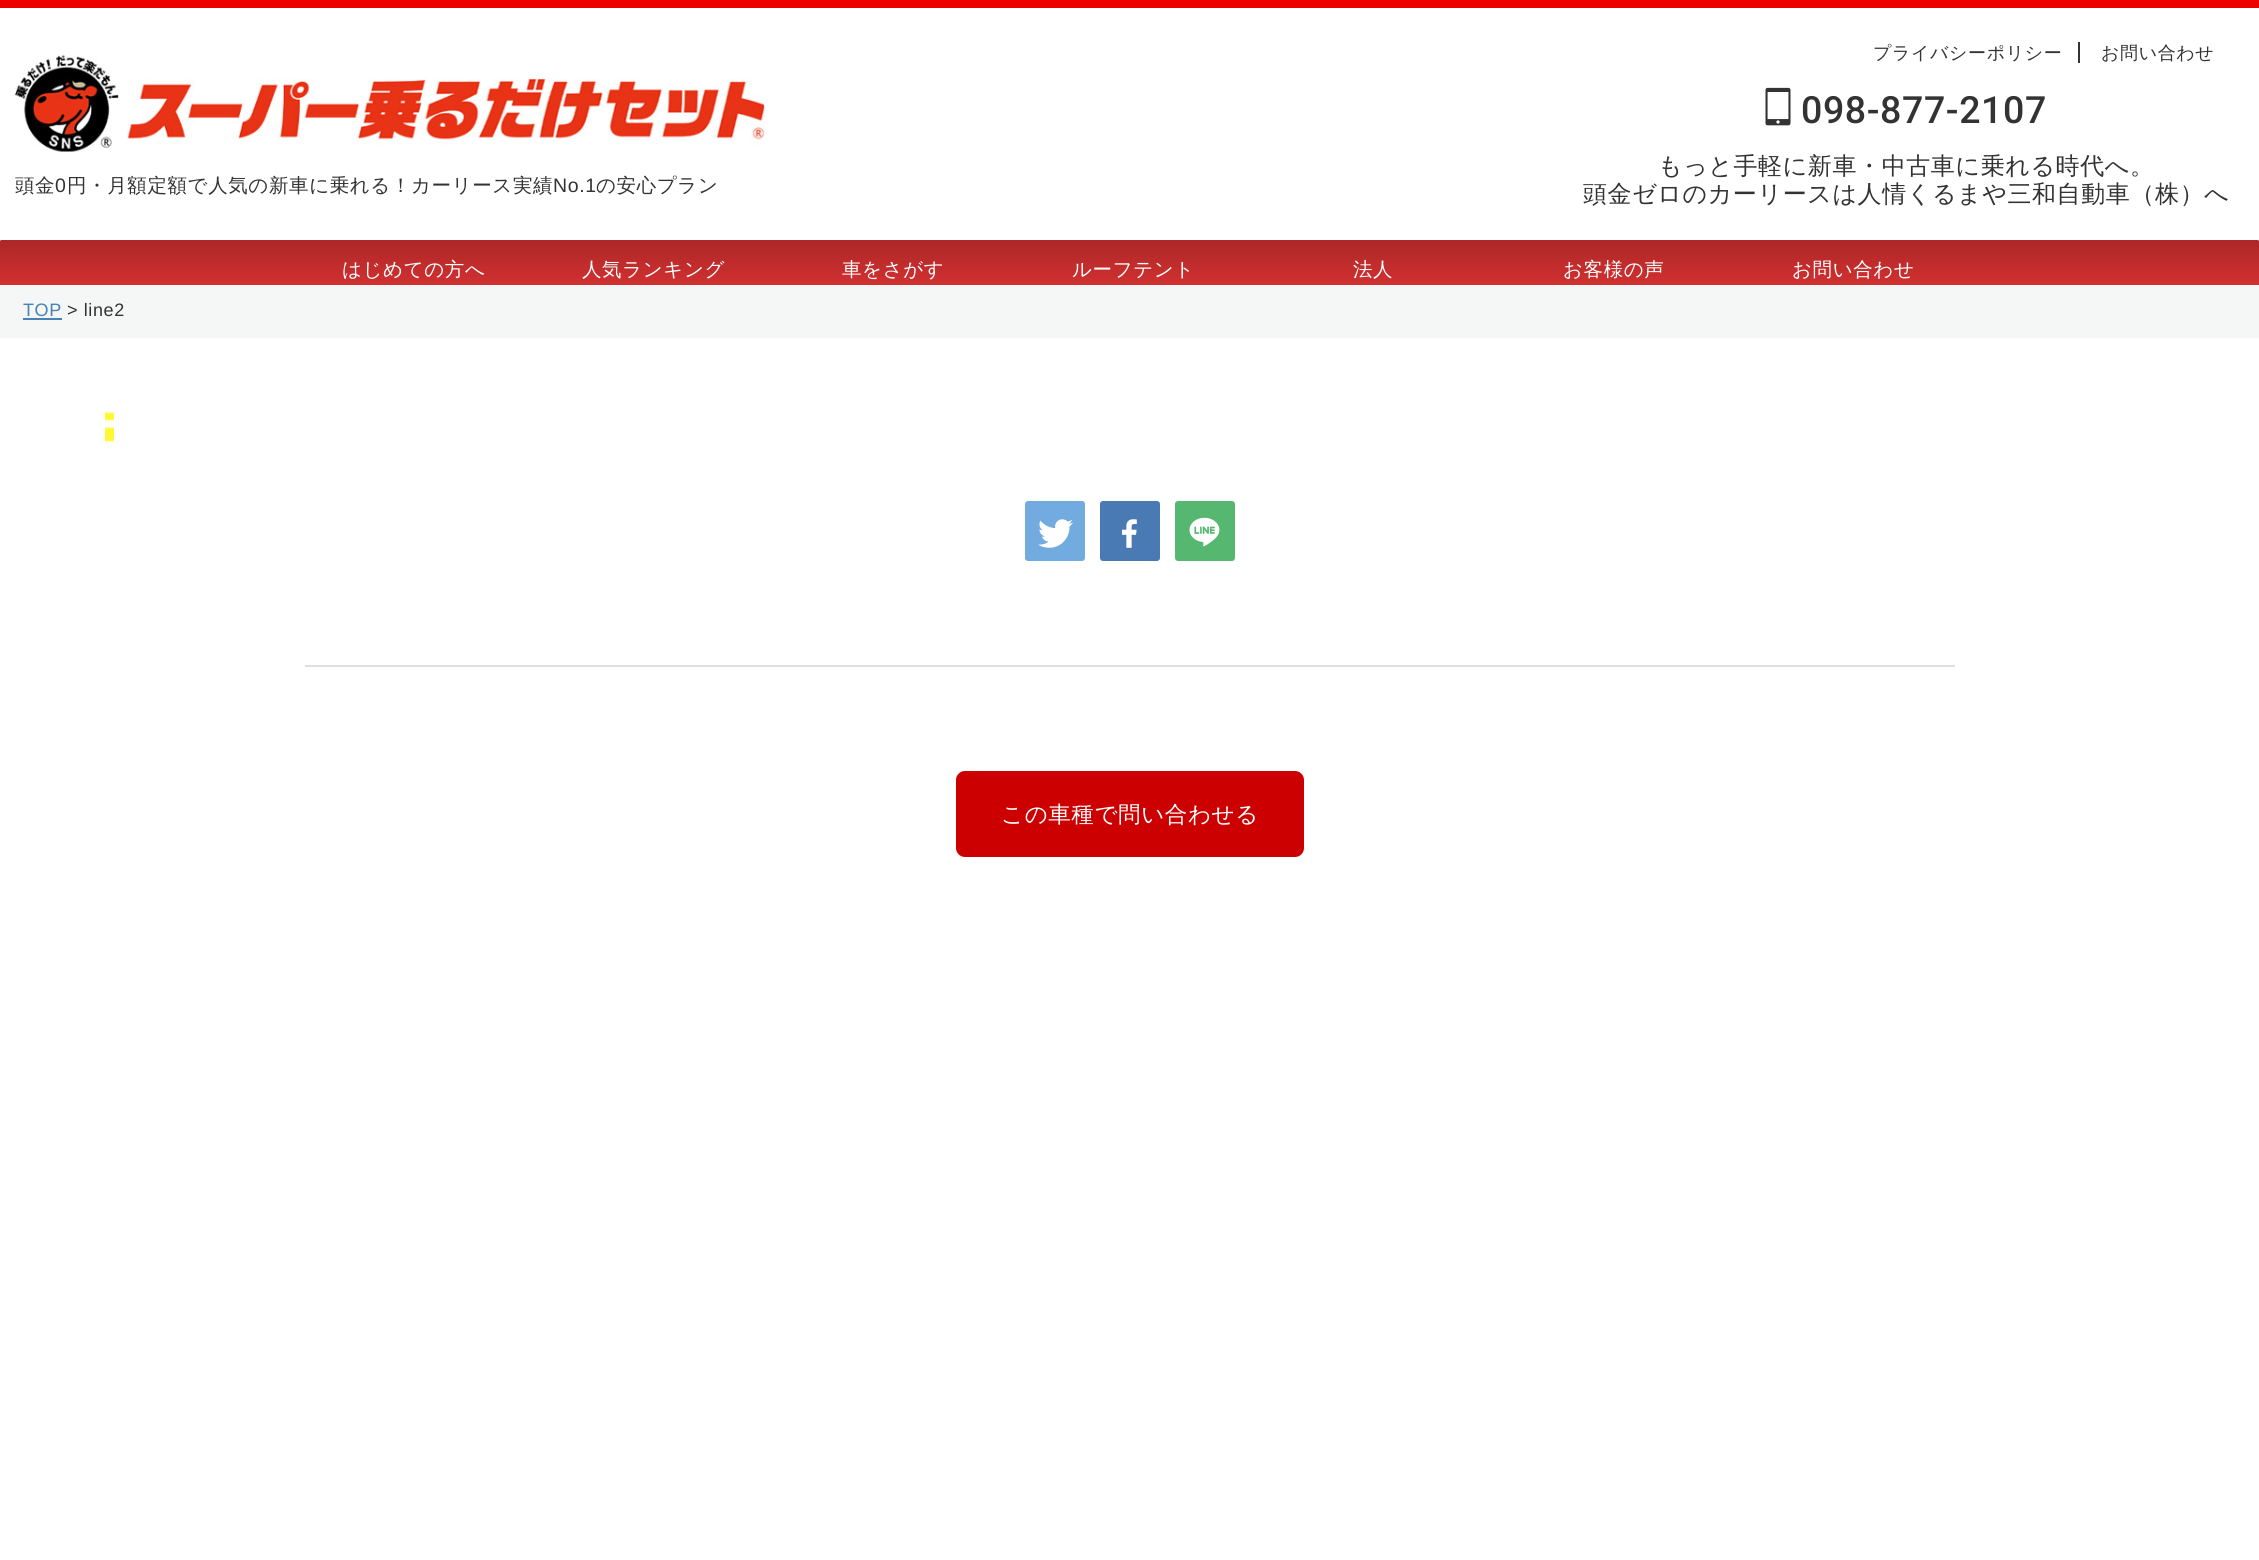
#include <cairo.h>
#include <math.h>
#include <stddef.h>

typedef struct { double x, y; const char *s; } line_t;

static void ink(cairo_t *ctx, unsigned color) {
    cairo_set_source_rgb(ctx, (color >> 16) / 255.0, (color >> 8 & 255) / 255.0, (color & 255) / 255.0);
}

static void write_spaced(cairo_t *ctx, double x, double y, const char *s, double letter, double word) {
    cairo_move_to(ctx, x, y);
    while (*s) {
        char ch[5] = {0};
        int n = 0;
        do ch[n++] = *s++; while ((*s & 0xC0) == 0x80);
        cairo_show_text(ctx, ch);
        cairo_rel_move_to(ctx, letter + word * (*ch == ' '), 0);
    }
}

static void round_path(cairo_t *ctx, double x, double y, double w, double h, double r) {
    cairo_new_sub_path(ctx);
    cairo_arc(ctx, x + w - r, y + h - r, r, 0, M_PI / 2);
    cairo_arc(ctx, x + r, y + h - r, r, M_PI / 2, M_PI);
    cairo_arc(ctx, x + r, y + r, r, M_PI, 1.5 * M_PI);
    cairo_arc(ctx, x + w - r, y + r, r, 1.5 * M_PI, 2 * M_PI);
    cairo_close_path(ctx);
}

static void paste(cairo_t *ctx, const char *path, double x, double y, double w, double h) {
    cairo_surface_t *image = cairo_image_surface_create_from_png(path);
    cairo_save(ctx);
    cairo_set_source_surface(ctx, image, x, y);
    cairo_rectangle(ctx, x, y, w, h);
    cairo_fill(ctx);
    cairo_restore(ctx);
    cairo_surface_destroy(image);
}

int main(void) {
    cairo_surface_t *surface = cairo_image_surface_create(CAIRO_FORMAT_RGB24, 2259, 1560);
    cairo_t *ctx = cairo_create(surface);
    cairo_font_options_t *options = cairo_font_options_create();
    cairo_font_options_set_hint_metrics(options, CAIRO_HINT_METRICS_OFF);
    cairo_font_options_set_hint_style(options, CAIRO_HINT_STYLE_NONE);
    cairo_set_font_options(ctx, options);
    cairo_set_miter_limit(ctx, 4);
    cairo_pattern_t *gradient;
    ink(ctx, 0xFFFFFF);
    cairo_paint(ctx);
    ink(ctx, 0xED0000);
    cairo_rectangle(ctx, 0, 0, 2259, 8);
    cairo_fill(ctx);
    paste(ctx, "media/1.png", 15, 55, 750, 97);
    cairo_select_font_face(ctx, "WenQuanYi Zen Hei Medium", CAIRO_FONT_SLANT_NORMAL, CAIRO_FONT_WEIGHT_NORMAL);
    cairo_set_font_size(ctx, 19.5);
    ink(ctx, 0x333333);
    write_spaced(ctx, 15, 192, "頭金", 0.6, 0);
    cairo_select_font_face(ctx, "Liberation Sans", CAIRO_FONT_SLANT_NORMAL, CAIRO_FONT_WEIGHT_NORMAL);
    write_spaced(ctx, 55, 192, "0", 0.6, 0);
    cairo_select_font_face(ctx, "WenQuanYi Zen Hei Medium", CAIRO_FONT_SLANT_NORMAL, CAIRO_FONT_WEIGHT_NORMAL);
    write_spaced(ctx, 67, 192, "円・月額定額で人気の新車に乗れる！カーリース実績", 0.6, 0);
    cairo_select_font_face(ctx, "Liberation Sans", CAIRO_FONT_SLANT_NORMAL, CAIRO_FONT_WEIGHT_NORMAL);
    write_spaced(ctx, 553, 192, "No.1", 0.6, 0);
    cairo_select_font_face(ctx, "WenQuanYi Zen Hei Medium", CAIRO_FONT_SLANT_NORMAL, CAIRO_FONT_WEIGHT_NORMAL);
    write_spaced(ctx, 596, 192, "の安心プラン", 0.6, 0);
    cairo_set_font_size(ctx, 18);
    write_spaced(ctx, 1873, 59, "プライバシーポリシー", 0.6, 0);
    cairo_rectangle(ctx, 2078, 42, 2, 21);
    cairo_fill(ctx);
    write_spaced(ctx, 2101, 59, "お問い合わせ", 0.6, 0);
    paste(ctx, "media/2.png", 1765, 87, 26, 39);
    cairo_select_font_face(ctx, "Roboto Medium", CAIRO_FONT_SLANT_NORMAL, CAIRO_FONT_WEIGHT_NORMAL);
    cairo_set_font_size(ctx, 37.5);
    write_spaced(ctx, 1801, 123, "098-877-2107", 0.6, 0);
    cairo_select_font_face(ctx, "WenQuanYi Zen Hei Medium", CAIRO_FONT_SLANT_NORMAL, CAIRO_FONT_WEIGHT_NORMAL);
    cairo_set_font_size(ctx, 24);
    write_spaced(ctx, 1658, 174, "もっと手軽に新車・中古車に乗れる時代へ。", 0.6, 0);
    write_spaced(ctx, 1583, 202, "頭金ゼロのカーリースは人情くるまや三和自動車（株）へ", 0.6, 0);
    gradient = cairo_pattern_create_linear(1130, 240, 1130, 300);
    cairo_pattern_add_color_stop_rgba(gradient, 0, 0.678, 0.153, 0.153, 1);
    cairo_pattern_add_color_stop_rgba(gradient, 1, 0.867, 0.2, 0.2, 1);
    cairo_set_source(ctx, gradient);
    cairo_pattern_destroy(gradient);
    round_path(ctx, 0, 240, 2259, 60, 1.5);
    cairo_fill(ctx);
    cairo_set_font_size(ctx, 19.5);
    ink(ctx, 0xFFFFFF);
    {
        static const line_t items[] = {
            {342, 276, "はじめての方へ"},
            {582, 276, "人気ランキング"},
            {842, 276, "車をさがす"},
            {1072, 276, "ルーフテント"},
            {1353, 276, "法人"},
            {1563, 276, "お客様の声"},
            {1792, 276, "お問い合わせ"},
        };
        for (size_t i = 0; i < sizeof items / sizeof *items; i++) {
            write_spaced(ctx, items[i].x, items[i].y, items[i].s, 0.6, 0);
        }
    }
    ink(ctx, 0xF5F6F6);
    cairo_rectangle(ctx, 0, 285, 2259, 53);
    cairo_fill(ctx);
    cairo_select_font_face(ctx, "Liberation Sans", CAIRO_FONT_SLANT_NORMAL, CAIRO_FONT_WEIGHT_NORMAL);
    cairo_set_font_size(ctx, 18);
    ink(ctx, 0x4682B4);
    write_spaced(ctx, 23, 316, "TOP", 0.6, 0);
    cairo_rectangle(ctx, 23, 318, 39, 2);
    cairo_fill(ctx);
    ink(ctx, 0x333333);
    write_spaced(ctx, 67, 316, "> line2", 0.6, 0);
    paste(ctx, "media/3.png", 105, 412, 9, 31);
    ink(ctx, 0x71ABDF);
    round_path(ctx, 1025, 501, 60, 60, 3);
    cairo_fill(ctx);
    paste(ctx, "media/4.png", 1038, 519, 35, 29);
    ink(ctx, 0x4A7AB4);
    round_path(ctx, 1100, 501, 60, 60, 3);
    cairo_fill(ctx);
    paste(ctx, "media/5.png", 1122, 519, 15, 29);
    ink(ctx, 0x56B870);
    round_path(ctx, 1175, 501, 60, 60, 3);
    cairo_fill(ctx);
    paste(ctx, "media/6.png", 1189, 517, 31, 30);
    ink(ctx, 0xE0E0E0);
    cairo_rectangle(ctx, 305, 665, 1650, 2);
    cairo_fill(ctx);
    ink(ctx, 0xCC0000);
    round_path(ctx, 956, 771, 348, 86, 9);
    cairo_fill(ctx);
    cairo_select_font_face(ctx, "WenQuanYi Zen Hei Medium", CAIRO_FONT_SLANT_NORMAL, CAIRO_FONT_WEIGHT_NORMAL);
    cairo_set_font_size(ctx, 22.5);
    ink(ctx, 0xFFFFFF);
    write_spaced(ctx, 1001, 822, "この車種で問い合わせる", 0.6, 0);
    cairo_surface_write_to_png(surface, "image.png");
    cairo_font_options_destroy(options);
    cairo_destroy(ctx);
    cairo_surface_destroy(surface);
    return 0;
}
